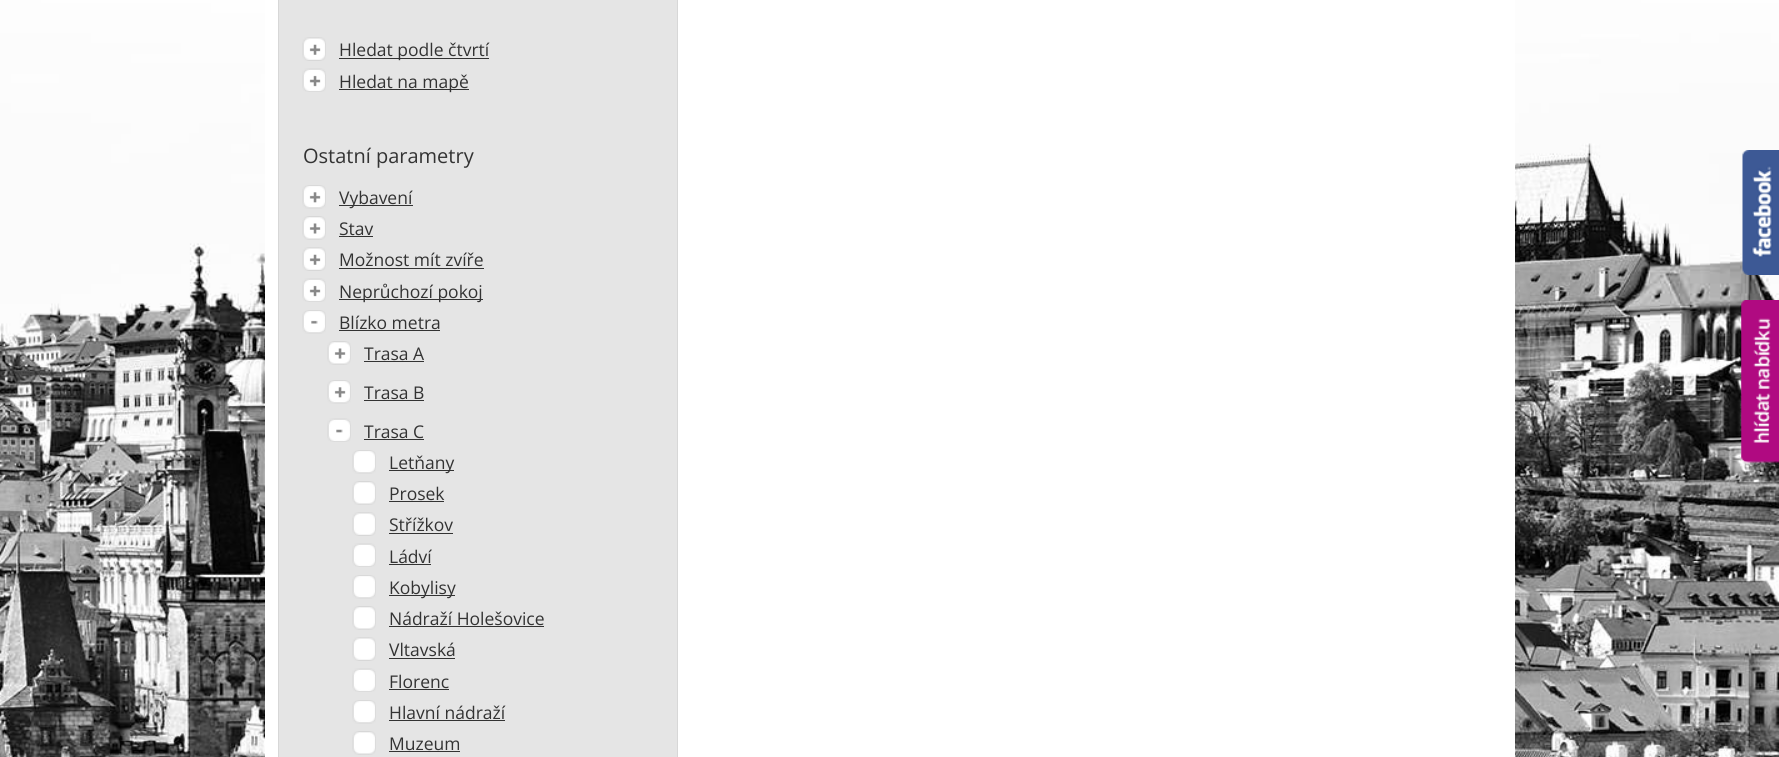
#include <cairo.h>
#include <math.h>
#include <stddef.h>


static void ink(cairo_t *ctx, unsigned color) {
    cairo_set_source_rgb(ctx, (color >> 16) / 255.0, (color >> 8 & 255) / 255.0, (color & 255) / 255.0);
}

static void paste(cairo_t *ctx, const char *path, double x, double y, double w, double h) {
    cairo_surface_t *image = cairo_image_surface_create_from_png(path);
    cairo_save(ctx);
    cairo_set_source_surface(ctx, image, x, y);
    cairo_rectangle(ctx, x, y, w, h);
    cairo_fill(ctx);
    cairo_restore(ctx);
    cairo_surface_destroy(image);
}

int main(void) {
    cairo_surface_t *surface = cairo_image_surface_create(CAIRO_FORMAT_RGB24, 1779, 757);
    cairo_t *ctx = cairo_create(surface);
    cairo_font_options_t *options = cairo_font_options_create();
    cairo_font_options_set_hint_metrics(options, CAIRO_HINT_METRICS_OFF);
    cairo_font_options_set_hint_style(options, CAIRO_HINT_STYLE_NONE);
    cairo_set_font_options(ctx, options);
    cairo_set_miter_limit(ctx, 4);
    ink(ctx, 0xFFFFFF);
    cairo_paint(ctx);
    paste(ctx, "media/1.png", 0, 0, 1779, 757);
    ink(ctx, 0xFFFFFF);
    cairo_rectangle(ctx, 265, 0, 1250, 757);
    cairo_fill(ctx);
    ink(ctx, 0xE5E5E5);
    cairo_rectangle(ctx, 278.5, -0.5, 399, 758);
    cairo_fill_preserve(ctx);
    ink(ctx, 0xD7D7D7);
    cairo_set_line_width(ctx, 1);
    cairo_stroke(ctx);
    paste(ctx, "media/2.png", 302, 37, 24, 24);
    ink(ctx, 0x333333);
    cairo_rectangle(ctx, 339, 58, 150, 1);
    cairo_fill(ctx);
    cairo_select_font_face(ctx, "Open Sans", CAIRO_FONT_SLANT_NORMAL, CAIRO_FONT_WEIGHT_NORMAL);
    cairo_set_font_size(ctx, 17.5);
    cairo_move_to(ctx, 339, 56);
    cairo_show_text(ctx, "Hledat podle čtvrtí");
    paste(ctx, "media/3.png", 302, 68, 24, 24);
    cairo_rectangle(ctx, 339, 89, 130, 1);
    cairo_fill(ctx);
    cairo_move_to(ctx, 339, 88);
    cairo_show_text(ctx, "Hledat na mapě");
    cairo_set_font_size(ctx, 20);
    cairo_move_to(ctx, 303, 163);
    cairo_show_text(ctx, "Ostatní parametry");
    paste(ctx, "media/4.png", 302, 185, 24, 24);
    cairo_rectangle(ctx, 339, 205, 74, 1);
    cairo_fill(ctx);
    cairo_set_font_size(ctx, 17.5);
    cairo_move_to(ctx, 339, 204);
    cairo_show_text(ctx, "Vybavení");
    paste(ctx, "media/5.png", 302, 216, 24, 24);
    cairo_move_to(ctx, 339, 235);
    cairo_show_text(ctx, "Stav");
    cairo_rectangle(ctx, 339, 236, 34, 1);
    cairo_fill(ctx);
    paste(ctx, "media/2.png", 302, 247, 24, 24);
    cairo_move_to(ctx, 339, 266);
    cairo_show_text(ctx, "Možnost mít zvíře");
    cairo_rectangle(ctx, 339, 268, 145, 1);
    cairo_fill(ctx);
    paste(ctx, "media/3.png", 302, 278, 24, 24);
    cairo_rectangle(ctx, 339, 299, 144, 1);
    cairo_fill(ctx);
    cairo_move_to(ctx, 339, 298);
    cairo_show_text(ctx, "Neprůchozí pokoj");
    paste(ctx, "media/6.png", 302, 310, 24, 24);
    cairo_move_to(ctx, 339, 329);
    cairo_show_text(ctx, "Blízko metra");
    cairo_rectangle(ctx, 339, 330, 101, 1);
    cairo_fill(ctx);
    paste(ctx, "media/7.png", 327, 341, 24, 24);
    cairo_move_to(ctx, 364, 360);
    cairo_show_text(ctx, "Trasa A");
    cairo_rectangle(ctx, 364, 361, 60, 1);
    cairo_fill(ctx);
    paste(ctx, "media/8.png", 334, 348, 12, 11);
    paste(ctx, "media/9.png", 327, 380, 24, 24);
    cairo_move_to(ctx, 364, 399);
    cairo_show_text(ctx, "Trasa B");
    cairo_rectangle(ctx, 364, 400, 60, 1);
    cairo_fill(ctx);
    paste(ctx, "media/10.png", 334, 387, 12, 11);
    paste(ctx, "media/11.png", 327, 418, 24, 24);
    cairo_move_to(ctx, 364, 438);
    cairo_show_text(ctx, "Trasa C");
    cairo_rectangle(ctx, 364, 439, 60, 1);
    cairo_fill(ctx);
    paste(ctx, "media/12.png", 352, 450, 24, 24);
    cairo_rectangle(ctx, 389, 470, 65, 1);
    cairo_fill(ctx);
    cairo_move_to(ctx, 389, 469);
    cairo_show_text(ctx, "Letňany");
    paste(ctx, "media/13.png", 352, 481, 24, 24);
    cairo_move_to(ctx, 389, 500);
    cairo_show_text(ctx, "Prosek");
    cairo_rectangle(ctx, 389, 501, 55, 1);
    cairo_fill(ctx);
    paste(ctx, "media/14.png", 352, 512, 24, 24);
    cairo_move_to(ctx, 389, 531);
    cairo_show_text(ctx, "Střížkov");
    cairo_rectangle(ctx, 389, 533, 64, 1);
    cairo_fill(ctx);
    paste(ctx, "media/15.png", 352, 543, 24, 24);
    cairo_move_to(ctx, 389, 563);
    cairo_show_text(ctx, "Ládví");
    cairo_rectangle(ctx, 389, 564, 42, 1);
    cairo_fill(ctx);
    paste(ctx, "media/12.png", 352, 575, 24, 24);
    cairo_rectangle(ctx, 389, 595, 66, 1);
    cairo_fill(ctx);
    cairo_move_to(ctx, 389, 594);
    cairo_show_text(ctx, "Kobylisy");
    paste(ctx, "media/13.png", 352, 606, 24, 24);
    cairo_move_to(ctx, 389, 625);
    cairo_show_text(ctx, "Nádraží Holešovice");
    cairo_rectangle(ctx, 389, 626, 155, 1);
    cairo_fill(ctx);
    paste(ctx, "media/14.png", 352, 637, 24, 24);
    cairo_move_to(ctx, 389, 656);
    cairo_show_text(ctx, "Vltavská");
    cairo_rectangle(ctx, 389, 658, 66, 1);
    cairo_fill(ctx);
    paste(ctx, "media/15.png", 352, 668, 24, 24);
    cairo_move_to(ctx, 389, 688);
    cairo_show_text(ctx, "Florenc");
    cairo_rectangle(ctx, 389, 689, 60, 1);
    cairo_fill(ctx);
    paste(ctx, "media/12.png", 352, 700, 24, 24);
    cairo_move_to(ctx, 389, 719);
    cairo_show_text(ctx, "Hlavní nádraží");
    cairo_rectangle(ctx, 389, 720, 116, 1);
    cairo_fill(ctx);
    paste(ctx, "media/13.png", 352, 731, 24, 24);
    cairo_move_to(ctx, 389, 750);
    cairo_show_text(ctx, "Muzeum");
    cairo_rectangle(ctx, 389, 751, 71, 1);
    cairo_fill(ctx);
    paste(ctx, "media/16.png", 1742, 150, 37, 125);
    paste(ctx, "media/17.png", 1741, 300, 38, 163);
    cairo_surface_write_to_png(surface, "image.png");
    cairo_font_options_destroy(options);
    cairo_destroy(ctx);
    cairo_surface_destroy(surface);
    return 0;
}
